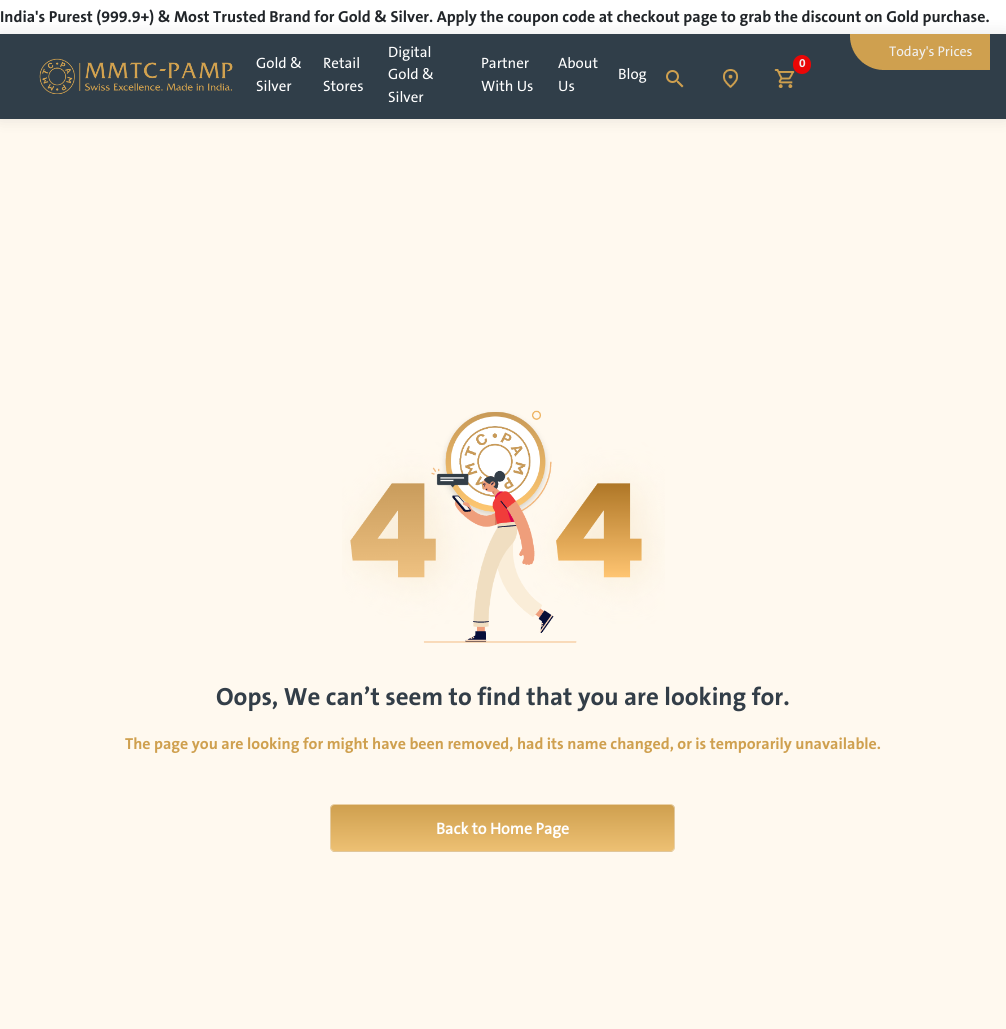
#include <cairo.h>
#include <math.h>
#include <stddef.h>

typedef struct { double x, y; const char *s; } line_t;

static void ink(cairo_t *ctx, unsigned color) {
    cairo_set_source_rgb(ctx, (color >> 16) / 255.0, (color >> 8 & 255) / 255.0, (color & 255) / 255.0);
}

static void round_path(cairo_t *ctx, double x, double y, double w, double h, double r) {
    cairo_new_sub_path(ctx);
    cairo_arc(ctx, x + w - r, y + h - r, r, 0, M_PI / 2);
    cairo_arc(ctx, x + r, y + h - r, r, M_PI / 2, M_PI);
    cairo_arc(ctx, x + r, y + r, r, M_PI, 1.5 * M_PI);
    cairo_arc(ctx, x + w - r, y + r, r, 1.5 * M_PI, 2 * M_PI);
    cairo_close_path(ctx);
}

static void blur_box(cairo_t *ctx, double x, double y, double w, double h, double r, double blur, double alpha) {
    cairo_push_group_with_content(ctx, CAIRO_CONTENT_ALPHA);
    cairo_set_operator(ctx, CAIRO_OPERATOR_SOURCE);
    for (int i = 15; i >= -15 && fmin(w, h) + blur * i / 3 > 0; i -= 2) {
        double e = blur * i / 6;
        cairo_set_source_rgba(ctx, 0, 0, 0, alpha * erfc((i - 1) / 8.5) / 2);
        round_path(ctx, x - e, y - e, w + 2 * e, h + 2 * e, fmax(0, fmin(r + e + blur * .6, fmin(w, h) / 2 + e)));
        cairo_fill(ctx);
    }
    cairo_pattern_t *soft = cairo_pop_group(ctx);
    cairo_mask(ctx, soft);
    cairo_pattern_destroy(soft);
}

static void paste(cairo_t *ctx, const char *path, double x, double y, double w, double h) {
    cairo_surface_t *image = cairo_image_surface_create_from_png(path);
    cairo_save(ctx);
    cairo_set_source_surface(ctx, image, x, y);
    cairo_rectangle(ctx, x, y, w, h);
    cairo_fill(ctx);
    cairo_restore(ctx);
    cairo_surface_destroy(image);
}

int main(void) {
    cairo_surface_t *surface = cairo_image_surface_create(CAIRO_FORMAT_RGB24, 1006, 1029);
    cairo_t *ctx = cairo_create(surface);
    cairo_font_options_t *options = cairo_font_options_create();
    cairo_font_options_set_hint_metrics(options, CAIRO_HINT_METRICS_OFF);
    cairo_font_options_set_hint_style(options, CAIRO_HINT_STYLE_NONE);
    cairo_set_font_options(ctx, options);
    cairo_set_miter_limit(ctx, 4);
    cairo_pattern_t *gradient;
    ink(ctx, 0xFFF9EF);
    cairo_paint(ctx);
    ink(ctx, 0xFFFFFF);
    cairo_rectangle(ctx, 0, 0, 1006, 34);
    cairo_fill(ctx);
    cairo_select_font_face(ctx, "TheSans", CAIRO_FONT_SLANT_NORMAL, CAIRO_FONT_WEIGHT_BOLD);
    cairo_set_font_size(ctx, 16);
    ink(ctx, 0x212529);
    cairo_move_to(ctx, 0, 22);
    cairo_show_text(ctx, "India's Purest (999.9+) & Most Trusted Brand for Gold & Silver. Apply the coupon code at checkout page to grab the discount on Gold purchase.");
    ink(ctx, 0x000000);
    blur_box(ctx, 0, 34, 1006, 85, 0, 7.5, 0.1);
    ink(ctx, 0x303E49);
    cairo_rectangle(ctx, 0, 34, 1006, 85);
    cairo_fill(ctx);
    paste(ctx, "media/1.png", 39, 58, 194, 36);
    cairo_select_font_face(ctx, "TheSans", CAIRO_FONT_SLANT_NORMAL, CAIRO_FONT_WEIGHT_NORMAL);
    cairo_set_font_size(ctx, 15);
    ink(ctx, 0xFFFFFF);
    {
        static const line_t items[] = {
            {256, 68, "Gold &"},
            {256, 91, "Silver"},
            {323, 68, "Retail"},
            {323, 91, "Stores"},
            {388, 57, "Digital"},
            {388, 79, "Gold &"},
            {388, 102, "Silver"},
            {481, 68, "Partner"},
            {481, 91, "With Us"},
            {558, 68, "About"},
            {558, 91, "Us"},
            {618, 79, "Blog"},
        };
        for (size_t i = 0; i < sizeof items / sizeof *items; i++) {
            cairo_move_to(ctx, items[i].x, items[i].y);
            cairo_show_text(ctx, items[i].s);
        }
    }
    paste(ctx, "media/2.png", 774, 69, 21, 19);
    ink(ctx, 0xEA0606);
    round_path(ctx, 793, 55, 18, 19, 9);
    cairo_fill(ctx);
    cairo_select_font_face(ctx, "TheSans", CAIRO_FONT_SLANT_NORMAL, CAIRO_FONT_WEIGHT_BOLD);
    cairo_set_font_size(ctx, 12);
    ink(ctx, 0xF0F0F0);
    cairo_move_to(ctx, 799, 67);
    cairo_show_text(ctx, "0");
    paste(ctx, "media/3.png", 666, 70, 18, 18);
    paste(ctx, "media/4.png", 723, 69, 15, 19);
    paste(ctx, "media/5.png", 850, 34, 140, 36);
    cairo_select_font_face(ctx, "TheSans", CAIRO_FONT_SLANT_NORMAL, CAIRO_FONT_WEIGHT_NORMAL);
    cairo_set_font_size(ctx, 14);
    cairo_move_to(ctx, 889, 56);
    cairo_show_text(ctx, "Today's Prices");
    paste(ctx, "media/6.png", 342, 410, 323, 233);
    cairo_select_font_face(ctx, "TheSans", CAIRO_FONT_SLANT_NORMAL, CAIRO_FONT_WEIGHT_BOLD);
    cairo_set_font_size(ctx, 25);
    ink(ctx, 0x333E48);
    cairo_move_to(ctx, 216, 705);
    cairo_show_text(ctx, "Oops, We can’t seem to find that you are looking for.");
    cairo_set_font_size(ctx, 16);
    ink(ctx, 0xCFA04F);
    cairo_move_to(ctx, 125, 749);
    cairo_show_text(ctx, "The page you are looking for might have been removed, had its name changed, or is temporarily unavailable.");
    cairo_save(ctx);
    round_path(ctx, 330, 804, 345, 48, 5);
    cairo_clip(ctx);
    gradient = cairo_pattern_create_linear(503, 759, 503, 805);
    cairo_pattern_add_color_stop_rgba(gradient, 0, 0.812, 0.627, 0.31, 1);
    cairo_pattern_add_color_stop_rgba(gradient, 1, 0.929, 0.753, 0.451, 1);
    cairo_set_source(ctx, gradient);
    cairo_pattern_destroy(gradient);
    cairo_rectangle(ctx, 330, 804, 345, 1);
    cairo_fill(ctx);
    gradient = cairo_pattern_create_linear(503, 805, 503, 851);
    cairo_pattern_add_color_stop_rgba(gradient, 0, 0.812, 0.627, 0.31, 1);
    cairo_pattern_add_color_stop_rgba(gradient, 1, 0.929, 0.753, 0.451, 1);
    cairo_set_source(ctx, gradient);
    cairo_pattern_destroy(gradient);
    cairo_rectangle(ctx, 330, 805, 345, 46);
    cairo_fill(ctx);
    gradient = cairo_pattern_create_linear(503, 851, 503, 897);
    cairo_pattern_add_color_stop_rgba(gradient, 0, 0.812, 0.627, 0.31, 1);
    cairo_pattern_add_color_stop_rgba(gradient, 1, 0.929, 0.753, 0.451, 1);
    cairo_set_source(ctx, gradient);
    cairo_pattern_destroy(gradient);
    cairo_rectangle(ctx, 330, 851, 345, 1);
    cairo_fill(ctx);
    cairo_restore(ctx);
    round_path(ctx, 330.5, 804.5, 344, 47, 4.5);
    cairo_set_source_rgba(ctx, 0.91, 0.855, 0.765, 0.64);
    cairo_set_line_width(ctx, 1);
    cairo_stroke(ctx);
    cairo_select_font_face(ctx, "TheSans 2", CAIRO_FONT_SLANT_NORMAL, CAIRO_FONT_WEIGHT_BOLD);
    ink(ctx, 0xFFFFFF);
    cairo_move_to(ctx, 436, 834);
    cairo_show_text(ctx, "Back to Home Page");
    cairo_surface_write_to_png(surface, "image.png");
    cairo_font_options_destroy(options);
    cairo_destroy(ctx);
    cairo_surface_destroy(surface);
    return 0;
}
